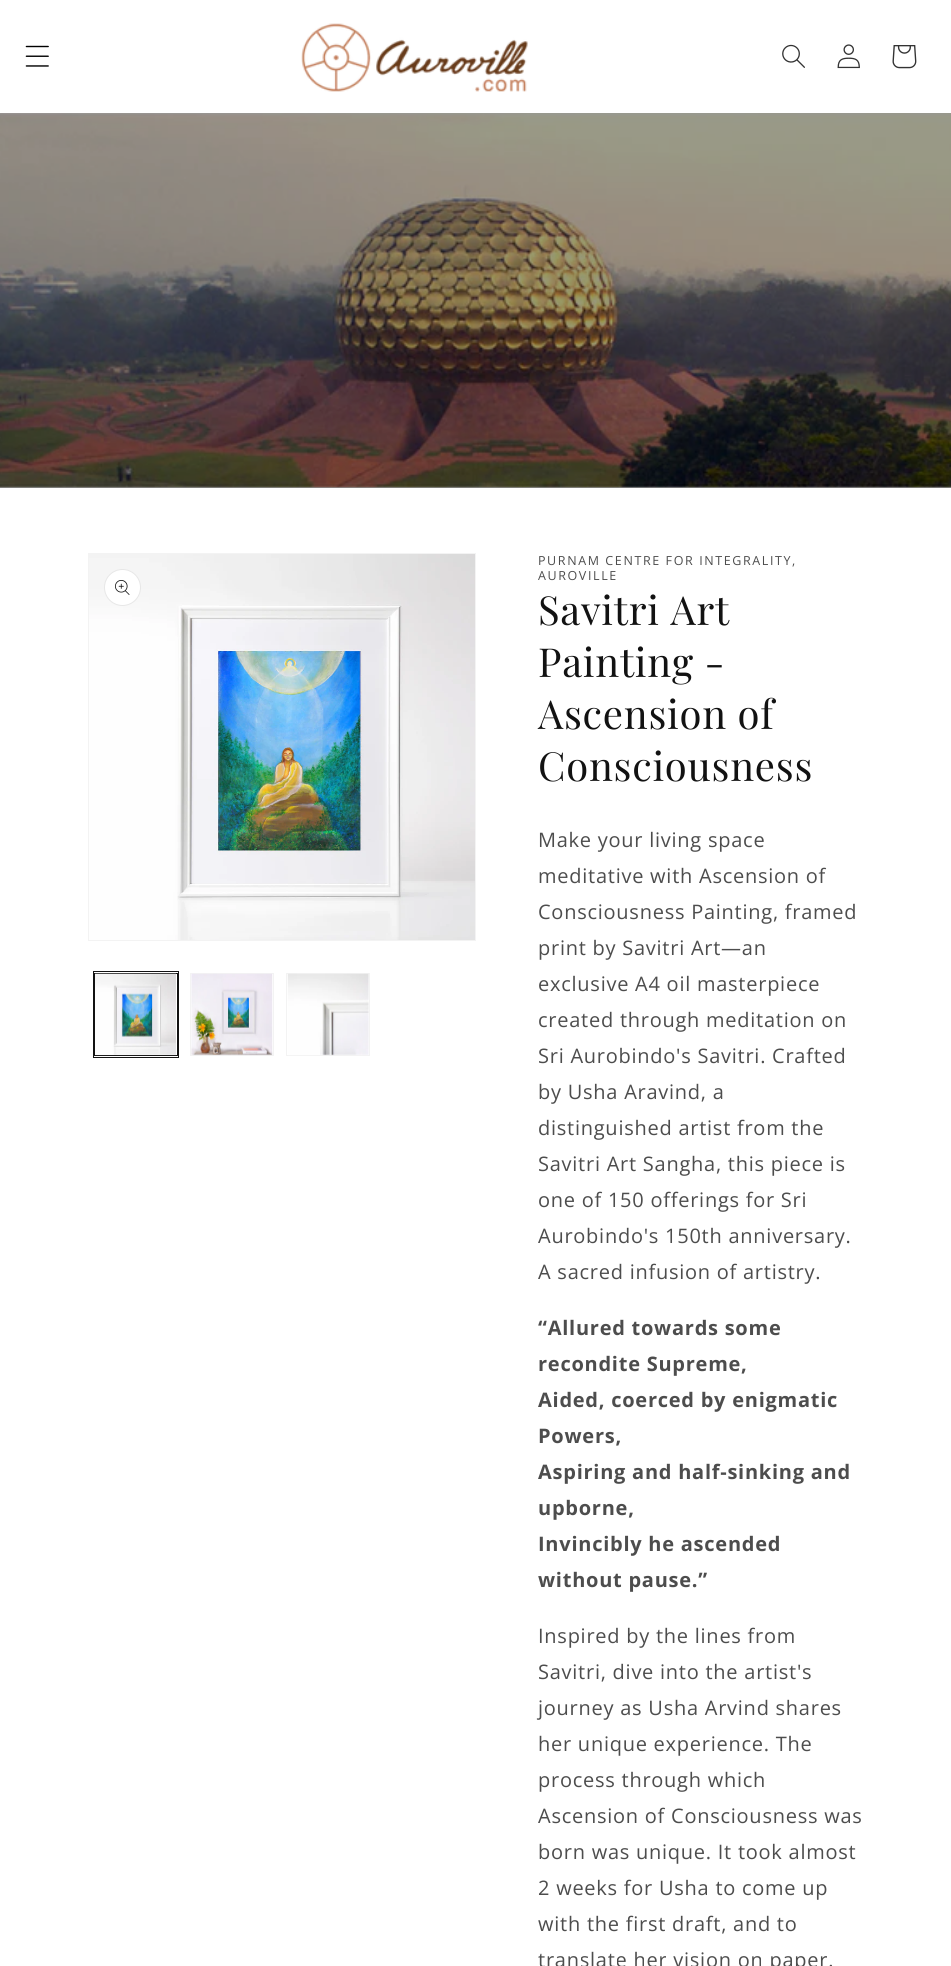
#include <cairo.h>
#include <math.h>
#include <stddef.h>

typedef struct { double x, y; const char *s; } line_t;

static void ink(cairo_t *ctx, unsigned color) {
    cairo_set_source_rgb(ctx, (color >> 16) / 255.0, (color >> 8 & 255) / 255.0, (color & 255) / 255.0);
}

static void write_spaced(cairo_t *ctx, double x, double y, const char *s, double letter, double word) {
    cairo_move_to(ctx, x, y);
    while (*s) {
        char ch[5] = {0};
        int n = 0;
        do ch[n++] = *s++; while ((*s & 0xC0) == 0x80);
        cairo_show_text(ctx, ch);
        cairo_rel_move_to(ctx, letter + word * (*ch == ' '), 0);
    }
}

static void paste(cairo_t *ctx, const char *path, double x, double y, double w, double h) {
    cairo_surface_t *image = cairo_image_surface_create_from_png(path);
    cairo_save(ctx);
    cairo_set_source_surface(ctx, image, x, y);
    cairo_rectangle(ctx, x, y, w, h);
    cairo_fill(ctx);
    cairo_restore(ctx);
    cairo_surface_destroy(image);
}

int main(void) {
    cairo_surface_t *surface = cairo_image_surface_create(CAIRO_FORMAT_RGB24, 951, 1966);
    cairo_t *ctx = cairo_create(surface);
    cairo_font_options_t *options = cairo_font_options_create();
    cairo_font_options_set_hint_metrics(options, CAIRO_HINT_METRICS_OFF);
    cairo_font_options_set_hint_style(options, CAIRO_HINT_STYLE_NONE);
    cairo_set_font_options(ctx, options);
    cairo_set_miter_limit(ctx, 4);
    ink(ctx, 0xFFFFFF);
    cairo_paint(ctx);
    paste(ctx, "media/1.png", 25, 45, 24, 22);
    paste(ctx, "media/2.png", 301, 23, 227, 69);
    paste(ctx, "media/3.png", 782, 44, 23, 24);
    paste(ctx, "media/4.png", 837, 44, 23, 25);
    paste(ctx, "media/5.png", 892, 45, 25, 24);
    ink(ctx, 0x8B8B8B);
    cairo_rectangle(ctx, 0, 487, 951, 1);
    cairo_fill(ctx);
    paste(ctx, "media/6.png", 0, 113, 951, 375);
    cairo_rectangle(ctx, 88.5, 553.5, 387, 387);
    ink(ctx, 0xF3F3F3);
    cairo_set_line_width(ctx, 1);
    cairo_stroke(ctx);
    paste(ctx, "media/7.png", 89, 554, 386, 386);
    ink(ctx, 0xFFFFFF);
    cairo_arc(ctx, 122.5, 587.5, 18.5, 0, 2 * M_PI);
    cairo_fill(ctx);
    cairo_arc(ctx, 122.5, 587.5, 18, 0, 2 * M_PI);
    cairo_set_source_rgba(ctx, 0.071, 0.071, 0.071, 0.1);
    cairo_stroke(ctx);
    paste(ctx, "media/8.png", 115, 580, 15, 15);
    cairo_rectangle(ctx, 93.5, 971.5, 85, 86);
    ink(ctx, 0x121212);
    cairo_stroke(ctx);
    cairo_rectangle(ctx, 94.5, 973.5, 83, 82);
    cairo_stroke(ctx);
    paste(ctx, "media/9.png", 95, 973, 81, 83);
    cairo_rectangle(ctx, 190.5, 973.5, 83, 82);
    ink(ctx, 0xF3F3F3);
    cairo_stroke(ctx);
    paste(ctx, "media/10.png", 191, 973, 82, 83);
    cairo_rectangle(ctx, 286.5, 973.5, 83, 82);
    cairo_stroke(ctx);
    paste(ctx, "media/11.png", 287, 973, 82, 83);
    cairo_select_font_face(ctx, "Open Sans", CAIRO_FONT_SLANT_NORMAL, CAIRO_FONT_WEIGHT_NORMAL);
    cairo_set_font_size(ctx, 12.5);
    ink(ctx, 0x4D4D4D);
    write_spaced(ctx, 538, 565, "PURNAM CENTRE FOR INTEGRALITY,", 1.6, 0);
    write_spaced(ctx, 538, 580, "AUROVILLE", 1.6, 0);
    cairo_select_font_face(ctx, "Playfair Display", CAIRO_FONT_SLANT_NORMAL, CAIRO_FONT_WEIGHT_NORMAL);
    cairo_set_font_size(ctx, 40);
    ink(ctx, 0x121212);
    {
        static const line_t items[] = {
            {538, 625, "Savitri Art"},
            {538, 677, "Painting -"},
            {538, 729, "Ascension of"},
            {538, 781, "Consciousness"},
        };
        for (size_t i = 0; i < sizeof items / sizeof *items; i++) {
            write_spaced(ctx, items[i].x, items[i].y, items[i].s, 0.75, 0);
        }
    }
    cairo_select_font_face(ctx, "Open Sans", CAIRO_FONT_SLANT_NORMAL, CAIRO_FONT_WEIGHT_NORMAL);
    cairo_set_font_size(ctx, 20);
    ink(ctx, 0x4D4D4D);
    {
        static const line_t items[] = {
            {538, 847, "Make your living space"},
            {538, 883, "meditative with Ascension of"},
            {538, 919, "Consciousness Painting, framed"},
            {538, 955, "print by Savitri Art—an"},
            {538, 991, "exclusive A4 oil masterpiece"},
            {538, 1027, "created through meditation on"},
            {538, 1063, "Sri Aurobindo's Savitri. Crafted"},
            {538, 1099, "by Usha Aravind, a"},
            {538, 1135, "distinguished artist from the"},
            {538, 1171, "Savitri Art Sangha, this piece is"},
            {538, 1207, "one of 150 offerings for Sri"},
            {538, 1243, "Aurobindo's 150th anniversary."},
            {538, 1279, "A sacred infusion of artistry."},
        };
        for (size_t i = 0; i < sizeof items / sizeof *items; i++) {
            write_spaced(ctx, items[i].x, items[i].y, items[i].s, 0.75, 0);
        }
    }
    cairo_select_font_face(ctx, "Open Sans", CAIRO_FONT_SLANT_NORMAL, CAIRO_FONT_WEIGHT_BOLD);
    {
        static const line_t items[] = {
            {538, 1335, "“Allured towards some"},
            {538, 1371, "recondite Supreme,"},
            {538, 1407, "Aided, coerced by enigmatic"},
            {538, 1443, "Powers,"},
            {538, 1479, "Aspiring and half-sinking and"},
            {538, 1515, "upborne,"},
            {538, 1551, "Invincibly he ascended"},
            {538, 1587, "without pause.”"},
        };
        for (size_t i = 0; i < sizeof items / sizeof *items; i++) {
            write_spaced(ctx, items[i].x, items[i].y, items[i].s, 0.75, 0);
        }
    }
    cairo_select_font_face(ctx, "Open Sans", CAIRO_FONT_SLANT_NORMAL, CAIRO_FONT_WEIGHT_NORMAL);
    {
        static const line_t items[] = {
            {538, 1643, "Inspired by the lines from"},
            {538, 1679, "Savitri, dive into the artist's"},
            {538, 1715, "journey as Usha Arvind shares"},
            {538, 1751, "her unique experience. The"},
            {538, 1787, "process through which"},
            {538, 1823, "Ascension of Consciousness was"},
            {538, 1859, "born was unique. It took almost"},
            {538, 1895, "2 weeks for Usha to come up"},
            {538, 1931, "with the first draft, and to"},
            {538, 1967, "translate her vision on paper."},
        };
        for (size_t i = 0; i < sizeof items / sizeof *items; i++) {
            write_spaced(ctx, items[i].x, items[i].y, items[i].s, 0.75, 0);
        }
    }
    cairo_surface_write_to_png(surface, "image.png");
    cairo_font_options_destroy(options);
    cairo_destroy(ctx);
    cairo_surface_destroy(surface);
    return 0;
}
